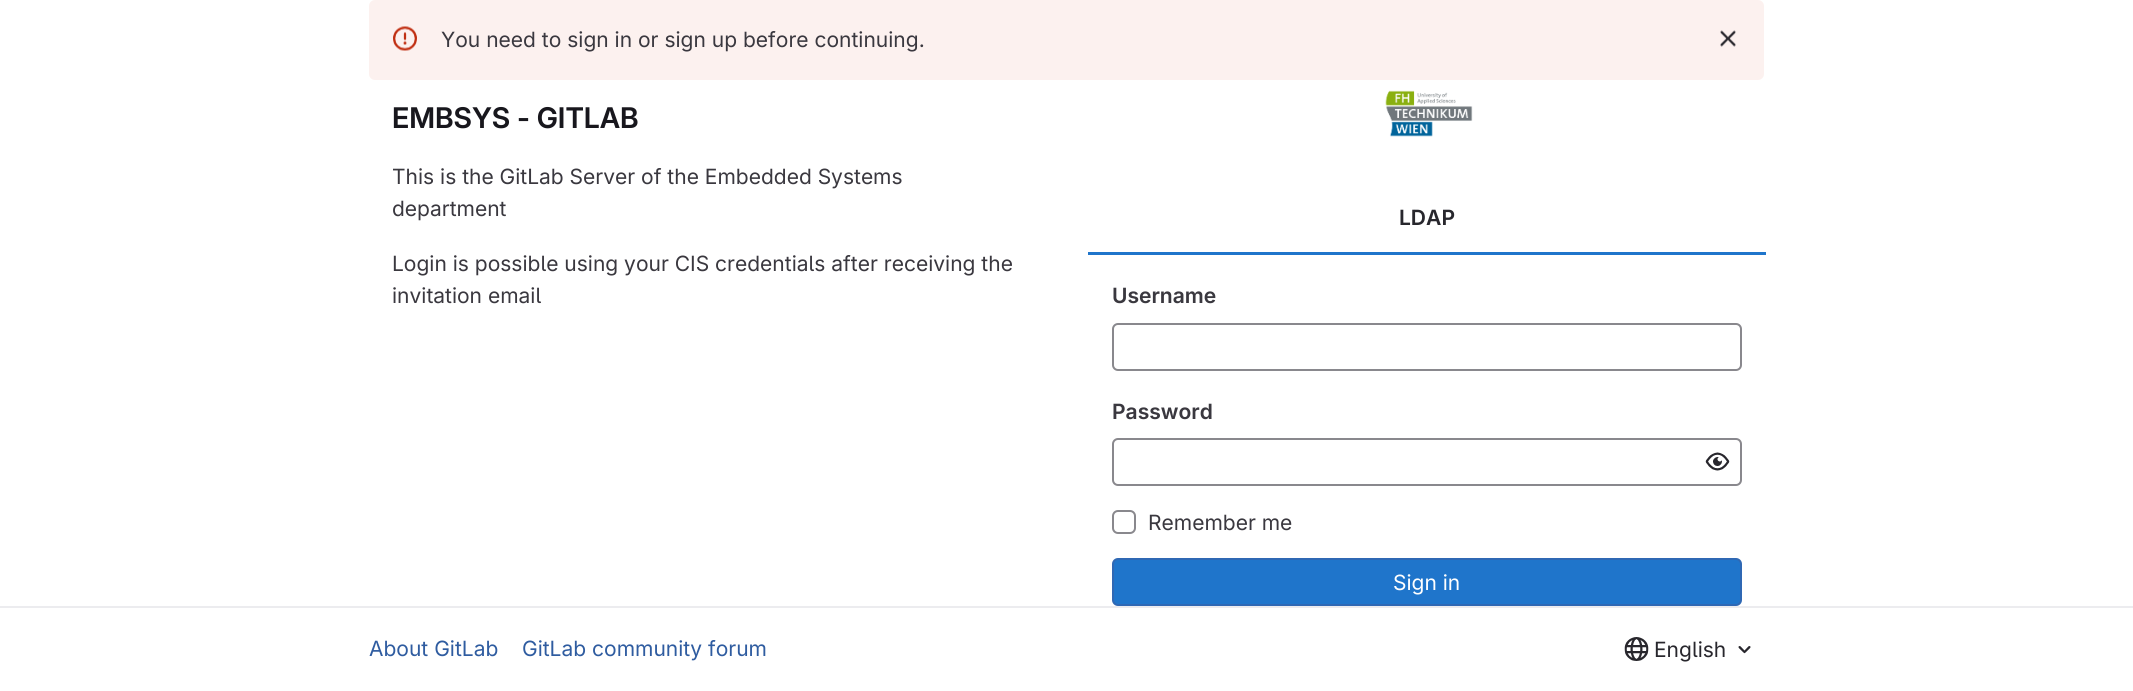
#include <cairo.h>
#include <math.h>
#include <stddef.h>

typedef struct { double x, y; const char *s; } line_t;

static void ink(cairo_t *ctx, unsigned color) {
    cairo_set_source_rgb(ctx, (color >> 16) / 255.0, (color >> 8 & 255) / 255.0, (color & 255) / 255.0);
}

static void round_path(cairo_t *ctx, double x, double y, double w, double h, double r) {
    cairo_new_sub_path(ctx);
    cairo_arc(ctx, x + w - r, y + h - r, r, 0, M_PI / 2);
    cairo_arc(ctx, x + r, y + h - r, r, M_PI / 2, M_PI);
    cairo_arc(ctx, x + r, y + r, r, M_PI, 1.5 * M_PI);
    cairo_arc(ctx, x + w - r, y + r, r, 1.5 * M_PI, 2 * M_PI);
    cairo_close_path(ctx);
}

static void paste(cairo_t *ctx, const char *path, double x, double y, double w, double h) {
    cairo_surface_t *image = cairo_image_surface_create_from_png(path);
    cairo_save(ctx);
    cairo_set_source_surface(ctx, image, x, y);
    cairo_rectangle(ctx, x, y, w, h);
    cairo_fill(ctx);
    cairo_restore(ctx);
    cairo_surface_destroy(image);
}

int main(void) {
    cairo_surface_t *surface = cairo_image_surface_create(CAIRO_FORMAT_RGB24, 2133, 691);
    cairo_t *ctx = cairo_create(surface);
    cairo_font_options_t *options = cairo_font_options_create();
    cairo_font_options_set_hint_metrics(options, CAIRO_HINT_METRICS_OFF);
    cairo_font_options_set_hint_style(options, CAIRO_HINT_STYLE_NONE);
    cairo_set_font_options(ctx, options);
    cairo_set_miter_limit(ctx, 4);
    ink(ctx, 0xFFFFFF);
    cairo_paint(ctx);
    ink(ctx, 0xFCF1EF);
    round_path(ctx, 369, 0, 1395, 80, 6);
    cairo_fill(ctx);
    paste(ctx, "media/1.png", 393, 26, 24, 25);
    cairo_select_font_face(ctx, "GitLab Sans", CAIRO_FONT_SLANT_NORMAL, CAIRO_FONT_WEIGHT_NORMAL);
    cairo_set_font_size(ctx, 21);
    ink(ctx, 0x3A383F);
    cairo_move_to(ctx, 441, 47);
    cairo_show_text(ctx, "You need to sign in or sign up before continuing.");
    paste(ctx, "media/2.png", 1720, 30, 16, 17);
    cairo_select_font_face(ctx, "GitLab Sans SemiBold", CAIRO_FONT_SLANT_NORMAL, CAIRO_FONT_WEIGHT_NORMAL);
    cairo_set_font_size(ctx, 28.5);
    ink(ctx, 0x18171D);
    cairo_move_to(ctx, 392, 128);
    cairo_show_text(ctx, "EMBSYS - GITLAB");
    cairo_select_font_face(ctx, "GitLab Sans", CAIRO_FONT_SLANT_NORMAL, CAIRO_FONT_WEIGHT_NORMAL);
    cairo_set_font_size(ctx, 21);
    ink(ctx, 0x3A383F);
    {
        static const line_t items[] = {
            {392, 184, "This is the GitLab Server of the Embedded Systems"},
            {392, 216, "department"},
            {392, 271, "Login is possible using your CIS credentials after receiving the"},
            {392, 303, "invitation email"},
        };
        for (size_t i = 0; i < sizeof items / sizeof *items; i++) {
            cairo_move_to(ctx, items[i].x, items[i].y);
            cairo_show_text(ctx, items[i].s);
        }
    }
    paste(ctx, "media/3.png", 1385, 90, 88, 47);
    cairo_select_font_face(ctx, "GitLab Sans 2 SemiBold", CAIRO_FONT_SLANT_NORMAL, CAIRO_FONT_WEIGHT_NORMAL);
    ink(ctx, 0x28272D);
    cairo_move_to(ctx, 1399, 225);
    cairo_show_text(ctx, "LDAP");
    ink(ctx, 0x1F75CB);
    cairo_rectangle(ctx, 1088, 252, 678, 3);
    cairo_fill(ctx);
    ink(ctx, 0x3A383F);
    cairo_move_to(ctx, 1112, 303);
    cairo_show_text(ctx, "Username");
    round_path(ctx, 1113, 324, 628, 46, 5);
    ink(ctx, 0x89888D);
    cairo_stroke(ctx);
    ink(ctx, 0x3A383F);
    cairo_move_to(ctx, 1112, 419);
    cairo_show_text(ctx, "Password");
    round_path(ctx, 1113, 439, 628, 46, 5);
    ink(ctx, 0x89888D);
    cairo_stroke(ctx);
    paste(ctx, "media/4.png", 1705, 452, 25, 19);
    round_path(ctx, 1113, 511, 22, 22, 5);
    cairo_stroke(ctx);
    cairo_select_font_face(ctx, "GitLab Sans", CAIRO_FONT_SLANT_NORMAL, CAIRO_FONT_WEIGHT_NORMAL);
    ink(ctx, 0x3A383F);
    cairo_move_to(ctx, 1148, 530);
    cairo_show_text(ctx, "Remember me");
    ink(ctx, 0x1F75CB);
    round_path(ctx, 1113, 559, 628, 46, 5);
    cairo_fill_preserve(ctx);
    ink(ctx, 0x2F68B4);
    cairo_stroke(ctx);
    ink(ctx, 0xFFFFFF);
    cairo_move_to(ctx, 1393, 590);
    cairo_show_text(ctx, "Sign in");
    ink(ctx, 0xECECEF);
    cairo_rectangle(ctx, 0, 606, 2133, 2);
    cairo_fill(ctx);
    ink(ctx, 0x2F5CA0);
    cairo_move_to(ctx, 369, 656);
    cairo_show_text(ctx, "About GitLab");
    cairo_move_to(ctx, 522, 656);
    cairo_show_text(ctx, "GitLab community forum");
    paste(ctx, "media/5.png", 1624, 637, 25, 24);
    ink(ctx, 0x28272D);
    cairo_move_to(ctx, 1654, 657);
    cairo_show_text(ctx, "English");
    paste(ctx, "media/6.png", 1738, 646, 13, 8);
    cairo_surface_write_to_png(surface, "image.png");
    cairo_font_options_destroy(options);
    cairo_destroy(ctx);
    cairo_surface_destroy(surface);
    return 0;
}
